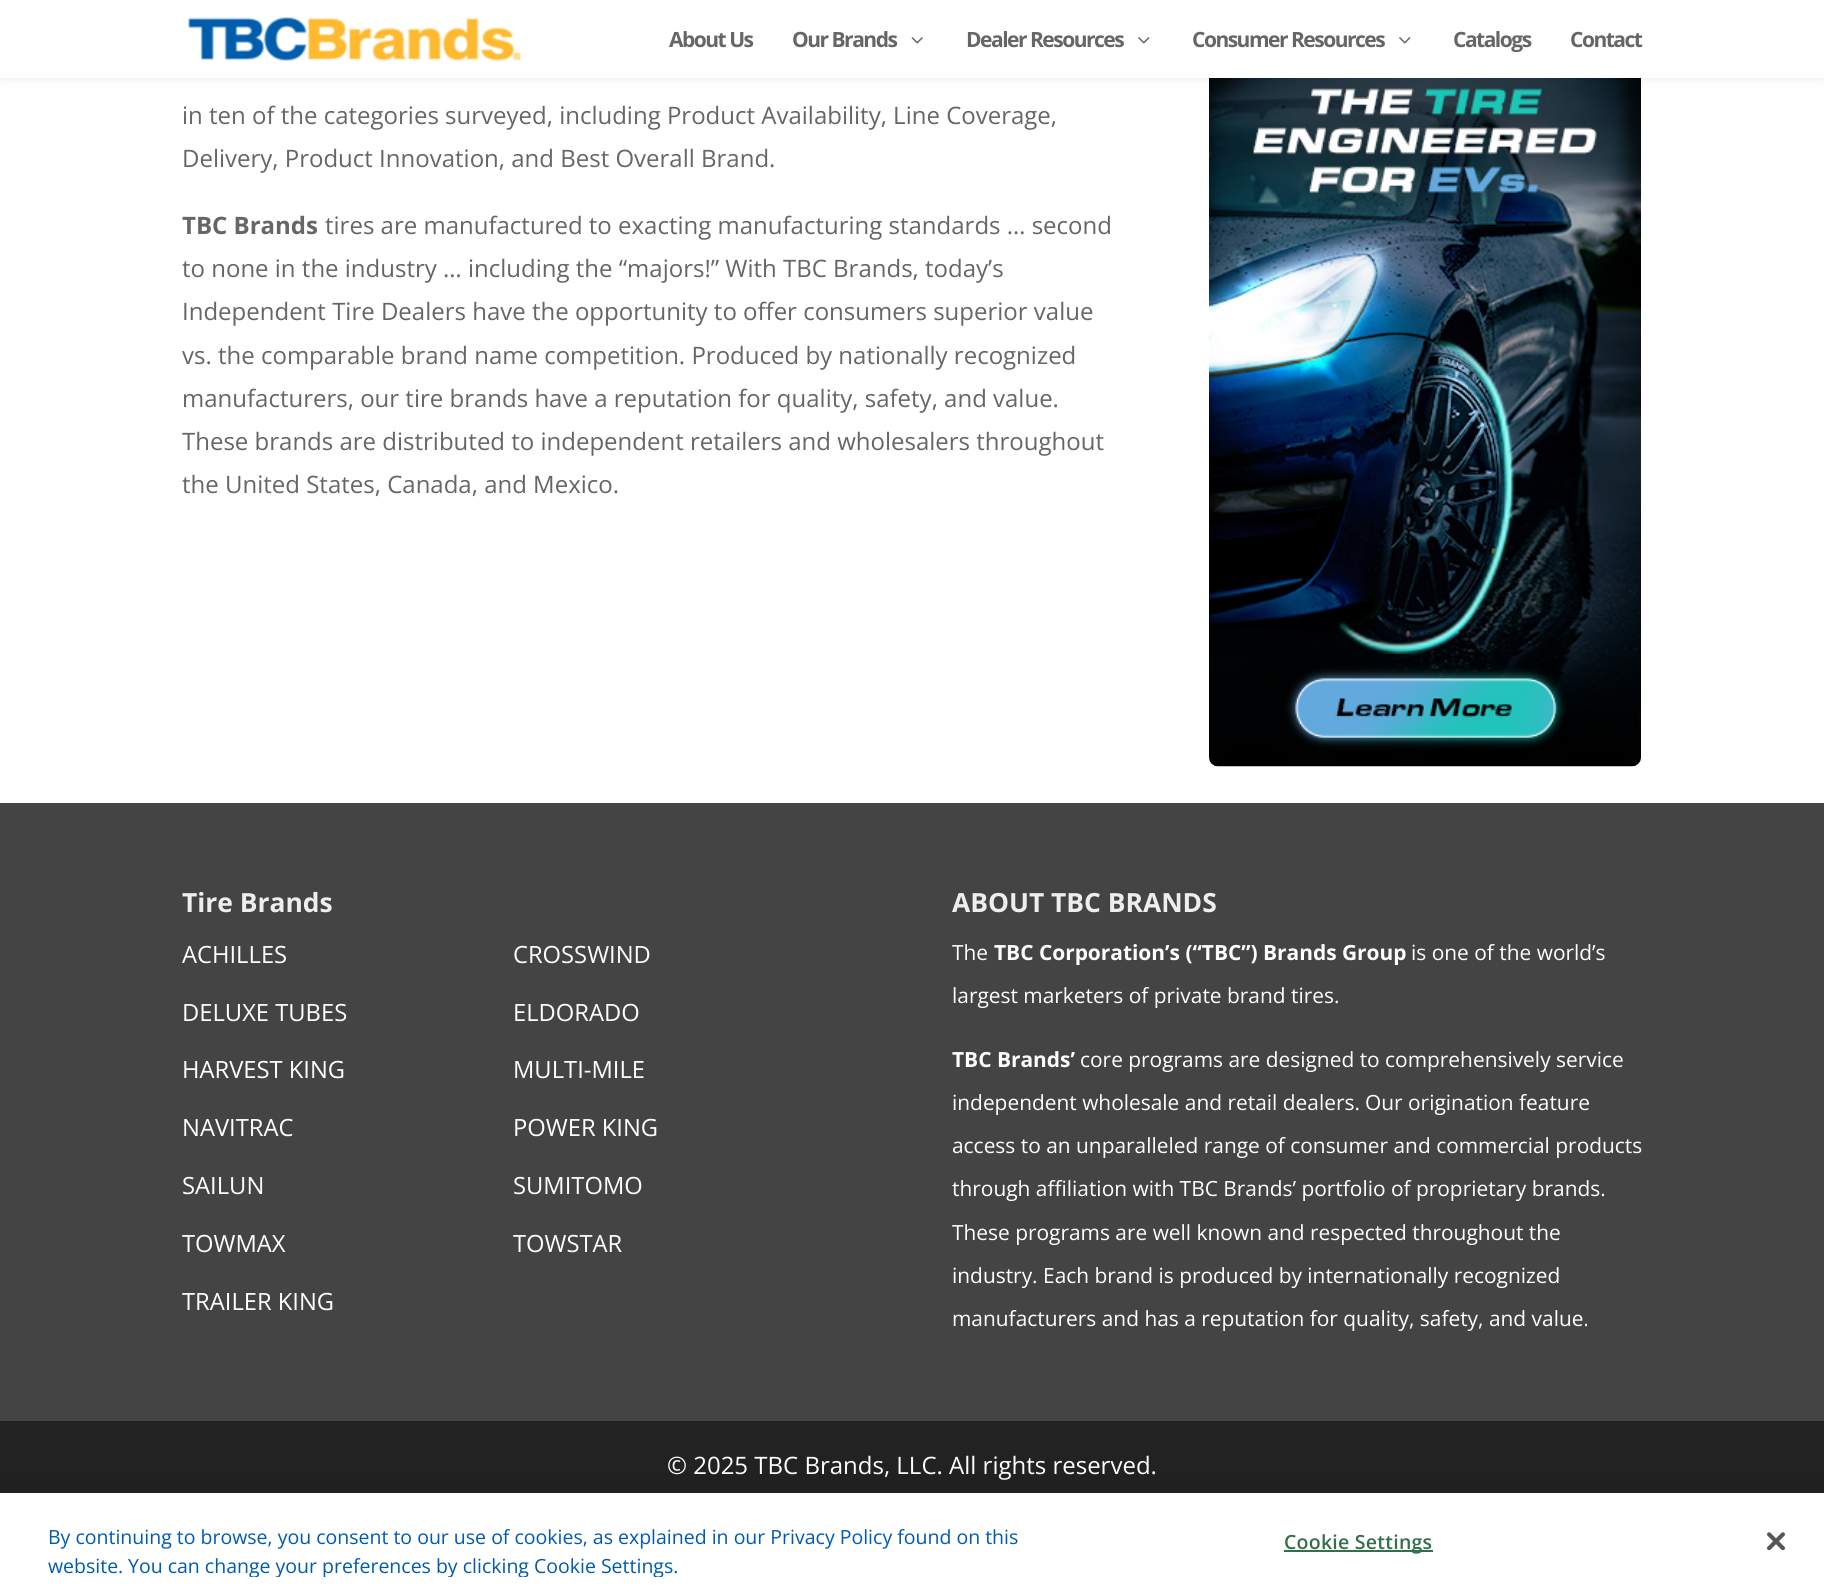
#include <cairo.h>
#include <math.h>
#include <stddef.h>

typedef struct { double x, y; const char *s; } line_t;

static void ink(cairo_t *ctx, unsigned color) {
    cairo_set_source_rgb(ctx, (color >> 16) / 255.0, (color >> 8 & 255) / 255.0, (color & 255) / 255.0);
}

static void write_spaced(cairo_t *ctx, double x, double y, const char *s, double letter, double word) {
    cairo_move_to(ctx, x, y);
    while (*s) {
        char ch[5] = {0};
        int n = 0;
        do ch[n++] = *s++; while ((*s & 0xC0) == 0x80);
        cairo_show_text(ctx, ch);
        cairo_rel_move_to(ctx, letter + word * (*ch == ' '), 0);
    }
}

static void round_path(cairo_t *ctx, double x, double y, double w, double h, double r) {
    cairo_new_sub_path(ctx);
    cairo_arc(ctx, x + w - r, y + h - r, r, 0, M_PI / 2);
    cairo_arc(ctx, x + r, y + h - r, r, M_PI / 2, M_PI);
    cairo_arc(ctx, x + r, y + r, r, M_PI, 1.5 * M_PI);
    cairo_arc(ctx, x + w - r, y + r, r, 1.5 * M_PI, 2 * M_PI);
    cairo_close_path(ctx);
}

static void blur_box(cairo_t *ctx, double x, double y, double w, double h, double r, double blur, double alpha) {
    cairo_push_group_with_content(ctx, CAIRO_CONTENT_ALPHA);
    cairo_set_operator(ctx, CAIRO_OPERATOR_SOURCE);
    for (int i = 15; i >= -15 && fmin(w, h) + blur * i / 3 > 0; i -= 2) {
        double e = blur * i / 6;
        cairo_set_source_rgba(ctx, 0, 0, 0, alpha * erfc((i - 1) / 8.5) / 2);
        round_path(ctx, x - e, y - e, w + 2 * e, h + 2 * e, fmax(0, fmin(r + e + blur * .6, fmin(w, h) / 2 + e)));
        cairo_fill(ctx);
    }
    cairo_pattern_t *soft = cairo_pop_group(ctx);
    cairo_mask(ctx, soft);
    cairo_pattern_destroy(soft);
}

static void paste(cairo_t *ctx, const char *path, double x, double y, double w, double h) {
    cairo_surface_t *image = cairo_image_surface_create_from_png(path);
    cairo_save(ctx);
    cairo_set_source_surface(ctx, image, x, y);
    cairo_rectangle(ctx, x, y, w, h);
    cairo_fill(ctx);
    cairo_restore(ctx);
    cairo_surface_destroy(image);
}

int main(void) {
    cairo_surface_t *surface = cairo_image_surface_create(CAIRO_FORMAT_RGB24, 1824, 1596);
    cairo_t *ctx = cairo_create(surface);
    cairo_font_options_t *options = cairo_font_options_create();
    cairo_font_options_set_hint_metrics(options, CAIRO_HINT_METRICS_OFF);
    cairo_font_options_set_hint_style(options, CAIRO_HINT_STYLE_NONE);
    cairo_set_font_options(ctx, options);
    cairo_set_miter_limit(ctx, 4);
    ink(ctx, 0xFFFFFF);
    cairo_paint(ctx);
    paste(ctx, "media/4.png", 1209, 78, 432, 689);
    ink(ctx, 0x000000);
    blur_box(ctx, 0, 0, 1824, 78, 0, 5, 0.1);
    ink(ctx, 0xFFFFFF);
    cairo_rectangle(ctx, 0, 0, 1824, 78);
    cairo_fill(ctx);
    paste(ctx, "media/1.png", 188, 17, 333, 44);
    cairo_select_font_face(ctx, "Open Sans", CAIRO_FONT_SLANT_NORMAL, CAIRO_FONT_WEIGHT_BOLD);
    cairo_set_font_size(ctx, 21);
    ink(ctx, 0x666666);
    write_spaced(ctx, 669, 47, "About Us", -1.5, 0);
    write_spaced(ctx, 792, 47, "Our Brands", -1.5, 0);
    paste(ctx, "media/2.png", 911, 37, 12, 7);
    write_spaced(ctx, 966, 47, "Dealer Resources", -1.5, 0);
    paste(ctx, "media/3.png", 1138, 37, 12, 7);
    write_spaced(ctx, 1192, 47, "Consumer Resources", -1.5, 0);
    paste(ctx, "media/3.png", 1399, 37, 12, 7);
    write_spaced(ctx, 1453, 47, "Catalogs", -1.5, 0);
    write_spaced(ctx, 1570, 47, "Contact", -1.5, 0);
    cairo_select_font_face(ctx, "Open Sans", CAIRO_FONT_SLANT_NORMAL, CAIRO_FONT_WEIGHT_NORMAL);
    cairo_set_font_size(ctx, 24);
    cairo_move_to(ctx, 182, 124);
    cairo_show_text(ctx, "in ten of the categories surveyed, including Product Availability, Line Coverage,");
    cairo_move_to(ctx, 182, 167);
    cairo_show_text(ctx, "Delivery, Product Innovation, and Best Overall Brand.");
    cairo_select_font_face(ctx, "Open Sans", CAIRO_FONT_SLANT_NORMAL, CAIRO_FONT_WEIGHT_BOLD);
    cairo_move_to(ctx, 182, 234);
    cairo_show_text(ctx, "TBC Brands");
    cairo_select_font_face(ctx, "Open Sans", CAIRO_FONT_SLANT_NORMAL, CAIRO_FONT_WEIGHT_NORMAL);
    {
        static const line_t items[] = {
            {325, 234, "tires are manufactured to exacting manufacturing standards … second"},
            {182, 277, "to none in the industry … including the “majors!” With TBC Brands, today’s"},
            {182, 320, "Independent Tire Dealers have the opportunity to offer consumers superior value"},
            {182, 364, "vs. the comparable brand name competition. Produced by nationally recognized"},
            {182, 407, "manufacturers, our tire brands have a reputation for quality, safety, and value."},
            {182, 450, "These brands are distributed to independent retailers and wholesalers throughout"},
            {182, 493, "the United States, Canada, and Mexico."},
        };
        for (size_t i = 0; i < sizeof items / sizeof *items; i++) {
            cairo_move_to(ctx, items[i].x, items[i].y);
            cairo_show_text(ctx, items[i].s);
        }
    }
    ink(ctx, 0x444444);
    cairo_rectangle(ctx, 0, 803, 1824, 618);
    cairo_fill(ctx);
    cairo_select_font_face(ctx, "Open Sans", CAIRO_FONT_SLANT_NORMAL, CAIRO_FONT_WEIGHT_BOLD);
    cairo_set_font_size(ctx, 26.4);
    ink(ctx, 0xEEEEEE);
    cairo_move_to(ctx, 182, 912);
    cairo_show_text(ctx, "Tire Brands");
    cairo_select_font_face(ctx, "Open Sans", CAIRO_FONT_SLANT_NORMAL, CAIRO_FONT_WEIGHT_NORMAL);
    cairo_set_font_size(ctx, 23.75);
    ink(ctx, 0xFFFFFF);
    {
        static const line_t items[] = {
            {182, 963, "ACHILLES"},
            {513, 963, "CROSSWIND"},
            {182, 1021, "DELUXE TUBES"},
            {513, 1021, "ELDORADO"},
            {182, 1078, "HARVEST KING"},
            {513, 1078, "MULTI-MILE"},
            {182, 1136, "NAVITRAC"},
            {513, 1136, "POWER KING"},
            {182, 1194, "SAILUN"},
            {513, 1194, "SUMITOMO"},
            {182, 1252, "TOWMAX"},
            {513, 1252, "TOWSTAR"},
            {182, 1310, "TRAILER KING"},
        };
        for (size_t i = 0; i < sizeof items / sizeof *items; i++) {
            cairo_move_to(ctx, items[i].x, items[i].y);
            cairo_show_text(ctx, items[i].s);
        }
    }
    cairo_select_font_face(ctx, "Open Sans", CAIRO_FONT_SLANT_NORMAL, CAIRO_FONT_WEIGHT_BOLD);
    cairo_set_font_size(ctx, 26.4);
    ink(ctx, 0xEEEEEE);
    cairo_move_to(ctx, 952, 912);
    cairo_show_text(ctx, "ABOUT TBC BRANDS");
    cairo_select_font_face(ctx, "Open Sans", CAIRO_FONT_SLANT_NORMAL, CAIRO_FONT_WEIGHT_NORMAL);
    cairo_set_font_size(ctx, 20.9);
    ink(ctx, 0xFFFFFF);
    cairo_move_to(ctx, 952, 960);
    cairo_show_text(ctx, "The");
    cairo_select_font_face(ctx, "Open Sans", CAIRO_FONT_SLANT_NORMAL, CAIRO_FONT_WEIGHT_BOLD);
    cairo_move_to(ctx, 994, 960);
    cairo_show_text(ctx, "TBC Corporation’s (“TBC”) Brands Group");
    cairo_select_font_face(ctx, "Open Sans", CAIRO_FONT_SLANT_NORMAL, CAIRO_FONT_WEIGHT_NORMAL);
    cairo_move_to(ctx, 1411, 960);
    cairo_show_text(ctx, "is one of the world’s");
    cairo_move_to(ctx, 952, 1003);
    cairo_show_text(ctx, "largest marketers of private brand tires.");
    cairo_select_font_face(ctx, "Open Sans", CAIRO_FONT_SLANT_NORMAL, CAIRO_FONT_WEIGHT_BOLD);
    cairo_move_to(ctx, 952, 1067);
    cairo_show_text(ctx, "TBC Brands’");
    cairo_select_font_face(ctx, "Open Sans", CAIRO_FONT_SLANT_NORMAL, CAIRO_FONT_WEIGHT_NORMAL);
    {
        static const line_t items[] = {
            {1080, 1067, "core programs are designed to comprehensively service"},
            {952, 1110, "independent wholesale and retail dealers."},
            {1365, 1110, "Our origination feature"},
            {952, 1153, "access to an unparalleled range of consumer and commercial products"},
            {952, 1196, "through affiliation with TBC Brands’ portfolio of proprietary brands."},
            {952, 1240, "These programs are well known and respected throughout the"},
            {952, 1283, "industry. Each brand is produced by internationally recognized"},
            {952, 1326, "manufacturers and has a reputation for quality, safety, and value."},
        };
        for (size_t i = 0; i < sizeof items / sizeof *items; i++) {
            cairo_move_to(ctx, items[i].x, items[i].y);
            cairo_show_text(ctx, items[i].s);
        }
    }
    ink(ctx, 0x222222);
    cairo_rectangle(ctx, 0, 1421, 1824, 72);
    cairo_fill(ctx);
    cairo_set_font_size(ctx, 24);
    ink(ctx, 0xFFFFFF);
    cairo_move_to(ctx, 667, 1474);
    cairo_show_text(ctx, "© 2025 TBC Brands, LLC. All rights reserved.");
    ink(ctx, 0x000000);
    blur_box(ctx, 0, 1493, 1824, 103, 0, 13.5, 0.2);
    ink(ctx, 0xFFFFFF);
    cairo_rectangle(ctx, 0, 1493, 1824, 103);
    cairo_fill(ctx);
    cairo_set_font_size(ctx, 19.5);
    ink(ctx, 0x005AAF);
    cairo_move_to(ctx, 48, 1544);
    cairo_show_text(ctx, "By continuing to browse, you consent to our use of cookies, as explained in our Privacy Policy found on this");
    cairo_move_to(ctx, 48, 1573);
    cairo_show_text(ctx, "website.");
    cairo_save(ctx);
    cairo_rectangle(ctx, 48, 1523, 1047, 54);
    cairo_clip(ctx);
    cairo_move_to(ctx, 128, 1573);
    cairo_show_text(ctx, "You can change your preferences by clicking Cookie Settings.");
    cairo_restore(ctx);
    ink(ctx, 0x346E4A);
    cairo_rectangle(ctx, 1284, 1550, 149, 2);
    cairo_fill(ctx);
    cairo_select_font_face(ctx, "Open Sans SemiBold", CAIRO_FONT_SLANT_NORMAL, CAIRO_FONT_WEIGHT_NORMAL);
    write_spaced(ctx, 1284, 1549, "Cookie Settings", 0.25, 0);
    paste(ctx, "media/5.png", 1767, 1532, 18, 18);
    cairo_surface_write_to_png(surface, "image.png");
    cairo_font_options_destroy(options);
    cairo_destroy(ctx);
    cairo_surface_destroy(surface);
    return 0;
}
